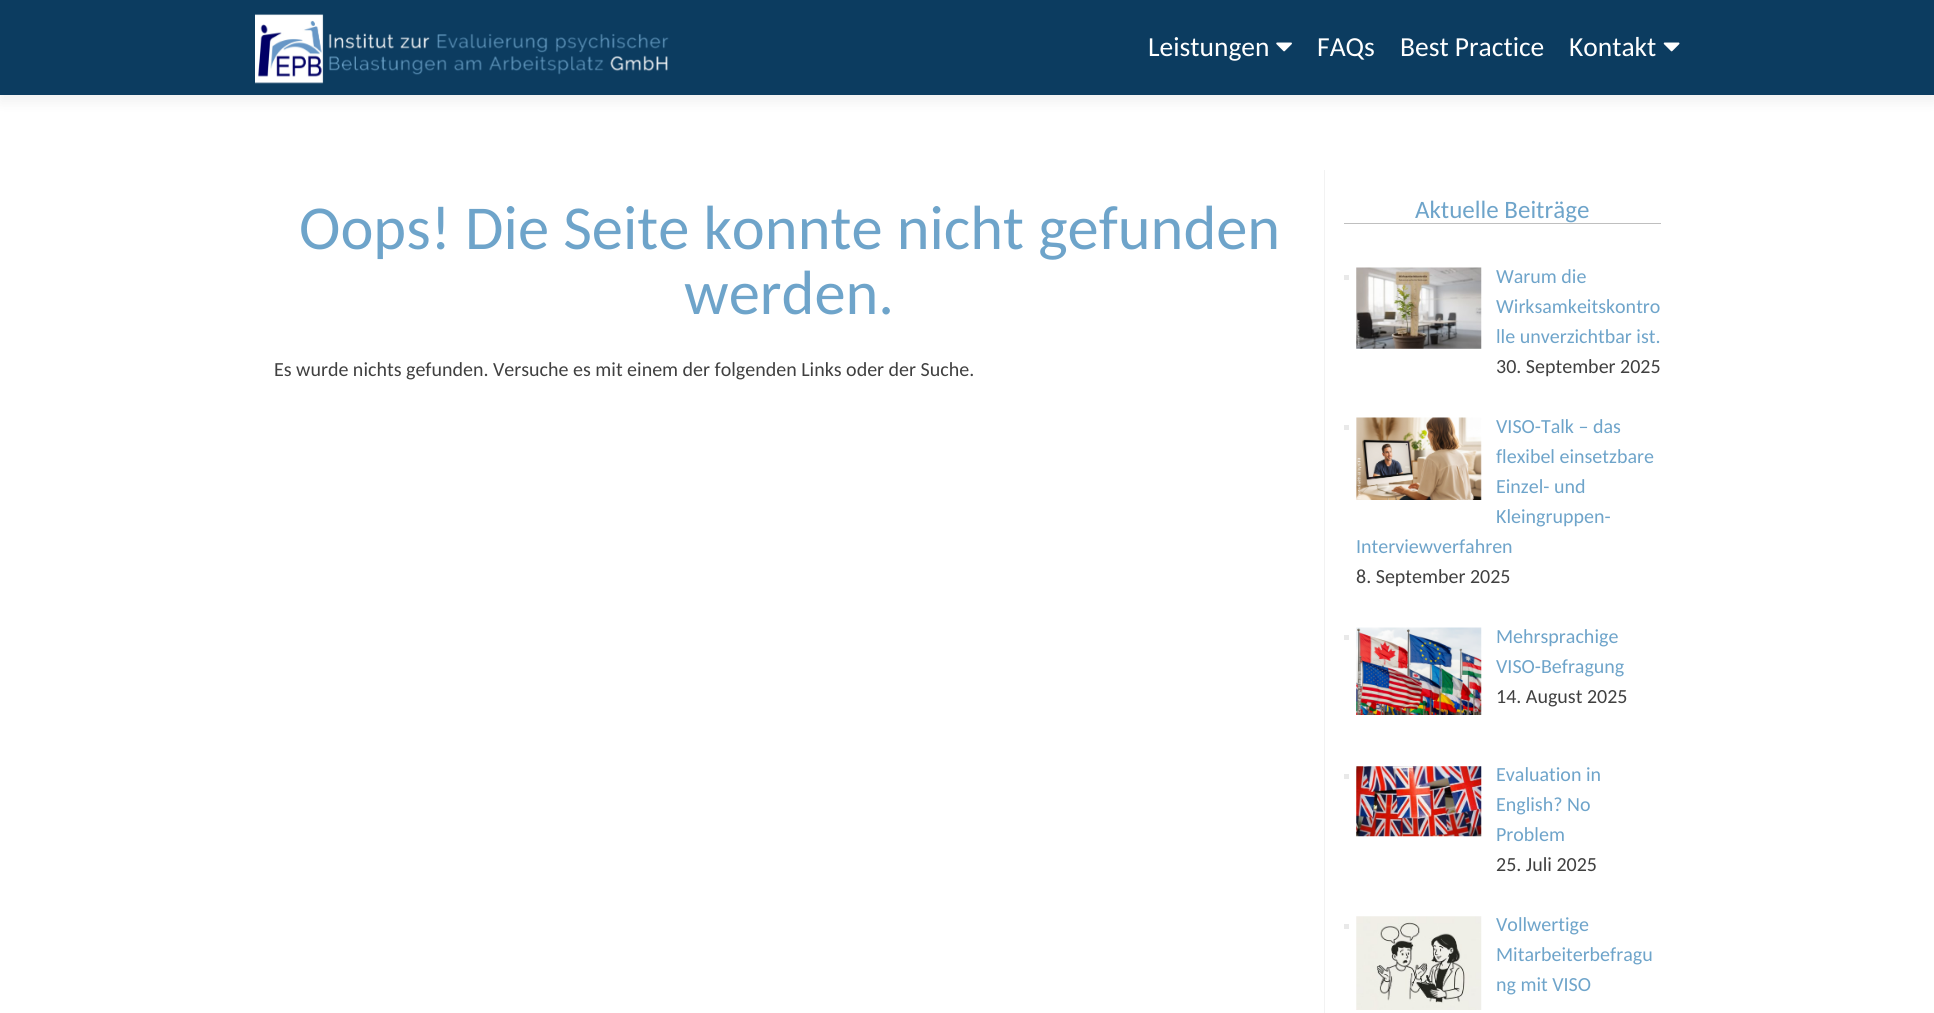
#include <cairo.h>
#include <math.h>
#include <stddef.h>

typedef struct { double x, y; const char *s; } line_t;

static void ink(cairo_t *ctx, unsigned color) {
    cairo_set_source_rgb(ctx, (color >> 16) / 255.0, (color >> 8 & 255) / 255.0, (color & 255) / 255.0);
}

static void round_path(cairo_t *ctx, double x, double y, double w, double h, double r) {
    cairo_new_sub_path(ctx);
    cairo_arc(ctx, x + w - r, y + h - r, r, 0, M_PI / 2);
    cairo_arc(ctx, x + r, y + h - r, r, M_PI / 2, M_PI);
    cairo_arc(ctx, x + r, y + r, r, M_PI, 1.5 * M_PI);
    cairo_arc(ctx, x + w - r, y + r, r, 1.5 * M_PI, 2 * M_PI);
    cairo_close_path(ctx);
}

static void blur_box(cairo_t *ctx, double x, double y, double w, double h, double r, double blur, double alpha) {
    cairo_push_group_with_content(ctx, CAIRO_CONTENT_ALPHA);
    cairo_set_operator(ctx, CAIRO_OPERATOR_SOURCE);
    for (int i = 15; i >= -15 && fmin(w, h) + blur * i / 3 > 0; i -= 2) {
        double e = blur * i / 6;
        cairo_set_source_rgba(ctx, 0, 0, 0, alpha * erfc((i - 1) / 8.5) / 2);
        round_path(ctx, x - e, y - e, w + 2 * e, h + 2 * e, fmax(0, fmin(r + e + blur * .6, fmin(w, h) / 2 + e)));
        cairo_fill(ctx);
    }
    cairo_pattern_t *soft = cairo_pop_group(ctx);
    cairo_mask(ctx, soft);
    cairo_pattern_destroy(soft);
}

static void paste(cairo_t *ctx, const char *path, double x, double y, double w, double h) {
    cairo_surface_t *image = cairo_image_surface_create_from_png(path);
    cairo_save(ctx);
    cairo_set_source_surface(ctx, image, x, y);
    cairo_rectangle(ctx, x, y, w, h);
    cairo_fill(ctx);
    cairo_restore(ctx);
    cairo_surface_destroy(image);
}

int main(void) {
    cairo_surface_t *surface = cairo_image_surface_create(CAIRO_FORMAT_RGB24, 1934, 1013);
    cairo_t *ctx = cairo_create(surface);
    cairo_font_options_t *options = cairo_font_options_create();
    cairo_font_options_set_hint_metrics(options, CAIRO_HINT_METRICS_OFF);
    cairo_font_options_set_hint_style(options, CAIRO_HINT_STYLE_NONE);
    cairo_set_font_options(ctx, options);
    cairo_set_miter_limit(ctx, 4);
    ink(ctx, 0xFFFFFF);
    cairo_paint(ctx);
    ink(ctx, 0x323232);
    blur_box(ctx, 0, 6, 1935, 95, 0, 7, 0.08);
    ink(ctx, 0x0C3C60);
    cairo_rectangle(ctx, 0, 0, 1934, 95);
    cairo_fill(ctx);
    paste(ctx, "media/1.png", 255, 14, 414, 70);
    cairo_select_font_face(ctx, "Carlito", CAIRO_FONT_SLANT_NORMAL, CAIRO_FONT_WEIGHT_NORMAL);
    cairo_set_font_size(ctx, 27.5);
    ink(ctx, 0xFFFFFF);
    cairo_move_to(ctx, 1148, 56);
    cairo_show_text(ctx, "Leistungen");
    paste(ctx, "media/2.png", 1276, 42, 16, 10);
    {
        static const line_t items[] = {
            {1317, 56, "FAQs"},
            {1400, 56, "Best Practice"},
            {1569, 56, "Kontakt"},
        };
        for (size_t i = 0; i < sizeof items / sizeof *items; i++) {
            cairo_move_to(ctx, items[i].x, items[i].y);
            cairo_show_text(ctx, items[i].s);
        }
    }
    paste(ctx, "media/3.png", 1663, 42, 17, 10);
    cairo_set_font_size(ctx, 62.5);
    ink(ctx, 0x6EA4CA);
    cairo_move_to(ctx, 299, 249);
    cairo_show_text(ctx, "Oops! Die Seite konnte nicht gefunden");
    cairo_move_to(ctx, 684, 314);
    cairo_show_text(ctx, "werden.");
    cairo_set_font_size(ctx, 20);
    ink(ctx, 0x404040);
    cairo_move_to(ctx, 274, 376);
    cairo_show_text(ctx, "Es wurde nichts gefunden. Versuche es mit einem der folgenden Links oder der Suche.");
    ink(ctx, 0xF2F2F2);
    cairo_rectangle(ctx, 1324, 170, 1, 843);
    cairo_fill(ctx);
    ink(ctx, 0xBFBFBF);
    cairo_rectangle(ctx, 1344, 223, 317, 1);
    cairo_fill(ctx);
    cairo_set_font_size(ctx, 25);
    ink(ctx, 0x6EA4CA);
    cairo_move_to(ctx, 1415, 218);
    cairo_show_text(ctx, "Aktuelle Beiträge");
    ink(ctx, 0xE9E9E9);
    cairo_rectangle(ctx, 1344, 275, 5, 5);
    cairo_fill(ctx);
    paste(ctx, "media/4.png", 1356, 267, 126, 82);
    cairo_set_font_size(ctx, 20);
    ink(ctx, 0x6EA4CA);
    {
        static const line_t items[] = {
            {1496, 283, "Warum die"},
            {1496, 313, "Wirksamkeitskontro"},
            {1496, 343, "lle unverzichtbar ist."},
        };
        for (size_t i = 0; i < sizeof items / sizeof *items; i++) {
            cairo_move_to(ctx, items[i].x, items[i].y);
            cairo_show_text(ctx, items[i].s);
        }
    }
    ink(ctx, 0x404040);
    cairo_move_to(ctx, 1496, 373);
    cairo_show_text(ctx, "30. September 2025");
    ink(ctx, 0xE9E9E9);
    cairo_rectangle(ctx, 1344, 425, 5, 5);
    cairo_fill(ctx);
    paste(ctx, "media/5.png", 1356, 417, 126, 83);
    ink(ctx, 0x6EA4CA);
    {
        static const line_t items[] = {
            {1496, 433, "VISO-Talk – das"},
            {1496, 463, "flexibel einsetzbare"},
            {1496, 493, "Einzel- und"},
            {1496, 523, "Kleingruppen-"},
            {1356, 553, "Interviewverfahren"},
        };
        for (size_t i = 0; i < sizeof items / sizeof *items; i++) {
            cairo_move_to(ctx, items[i].x, items[i].y);
            cairo_show_text(ctx, items[i].s);
        }
    }
    ink(ctx, 0x404040);
    cairo_move_to(ctx, 1356, 583);
    cairo_show_text(ctx, "8. September 2025");
    ink(ctx, 0xE9E9E9);
    cairo_rectangle(ctx, 1344, 635, 5, 5);
    cairo_fill(ctx);
    paste(ctx, "media/6.png", 1356, 627, 126, 88);
    ink(ctx, 0x6EA4CA);
    cairo_move_to(ctx, 1496, 643);
    cairo_show_text(ctx, "Mehrsprachige");
    cairo_move_to(ctx, 1496, 673);
    cairo_show_text(ctx, "VISO-Befragung");
    ink(ctx, 0x404040);
    cairo_move_to(ctx, 1496, 703);
    cairo_show_text(ctx, "14. August 2025");
    ink(ctx, 0xE9E9E9);
    cairo_rectangle(ctx, 1344, 774, 5, 5);
    cairo_fill(ctx);
    paste(ctx, "media/7.png", 1356, 766, 126, 71);
    ink(ctx, 0x6EA4CA);
    {
        static const line_t items[] = {
            {1496, 781, "Evaluation in"},
            {1496, 811, "English? No"},
            {1496, 841, "Problem"},
        };
        for (size_t i = 0; i < sizeof items / sizeof *items; i++) {
            cairo_move_to(ctx, items[i].x, items[i].y);
            cairo_show_text(ctx, items[i].s);
        }
    }
    ink(ctx, 0x404040);
    cairo_move_to(ctx, 1496, 871);
    cairo_show_text(ctx, "25. Juli 2025");
    ink(ctx, 0xE9E9E9);
    cairo_rectangle(ctx, 1344, 924, 5, 5);
    cairo_fill(ctx);
    paste(ctx, "media/8.png", 1356, 916, 126, 94);
    ink(ctx, 0x6EA4CA);
    {
        static const line_t items[] = {
            {1496, 931, "Vollwertige"},
            {1496, 961, "Mitarbeiterbefragu"},
            {1496, 991, "ng mit VISO"},
        };
        for (size_t i = 0; i < sizeof items / sizeof *items; i++) {
            cairo_move_to(ctx, items[i].x, items[i].y);
            cairo_show_text(ctx, items[i].s);
        }
    }
    cairo_surface_write_to_png(surface, "image.png");
    cairo_font_options_destroy(options);
    cairo_destroy(ctx);
    cairo_surface_destroy(surface);
    return 0;
}
